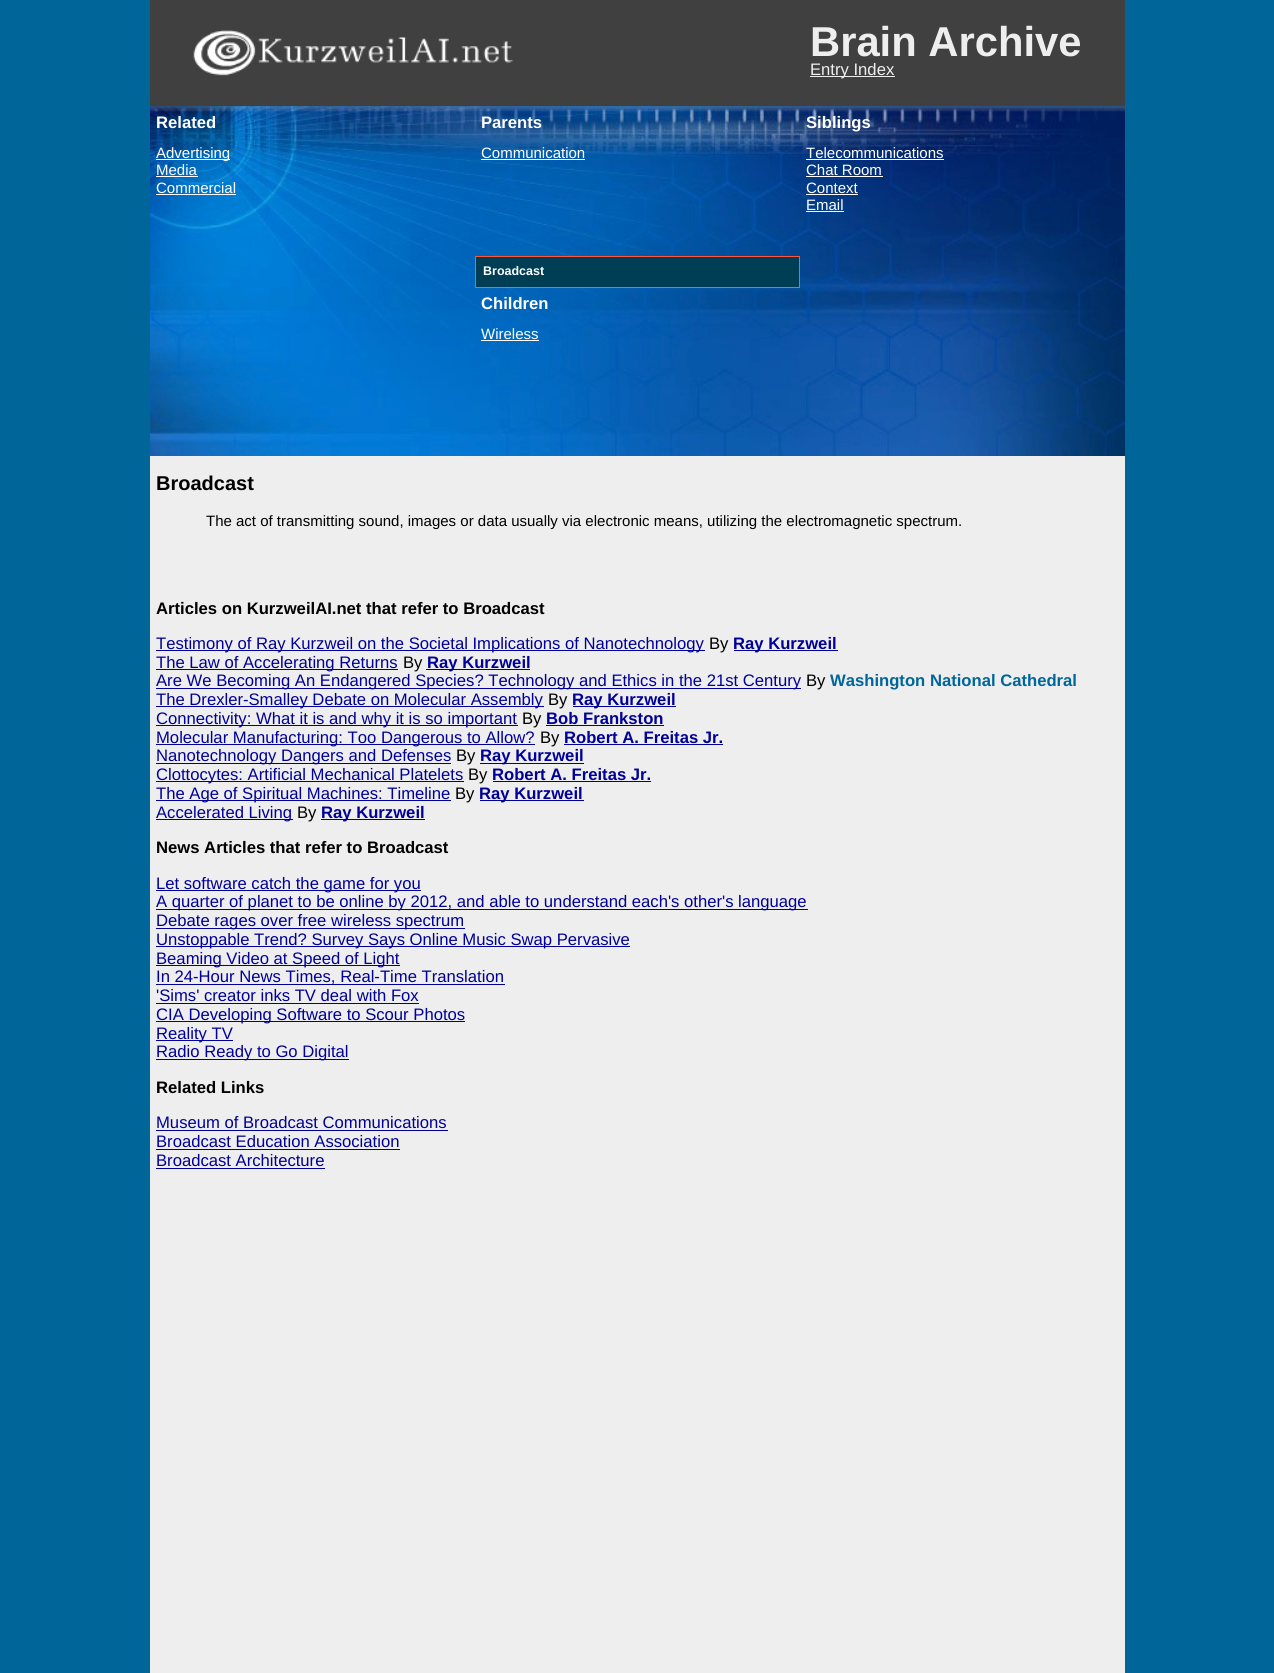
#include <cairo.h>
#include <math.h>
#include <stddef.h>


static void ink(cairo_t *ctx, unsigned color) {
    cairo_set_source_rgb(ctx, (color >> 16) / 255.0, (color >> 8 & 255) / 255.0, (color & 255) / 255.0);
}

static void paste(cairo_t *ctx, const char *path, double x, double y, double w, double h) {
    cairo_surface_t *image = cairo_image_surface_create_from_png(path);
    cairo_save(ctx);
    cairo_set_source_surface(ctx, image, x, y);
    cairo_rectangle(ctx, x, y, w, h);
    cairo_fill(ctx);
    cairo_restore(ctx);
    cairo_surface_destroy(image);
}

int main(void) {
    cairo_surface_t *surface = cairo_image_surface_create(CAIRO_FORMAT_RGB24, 1274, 1673);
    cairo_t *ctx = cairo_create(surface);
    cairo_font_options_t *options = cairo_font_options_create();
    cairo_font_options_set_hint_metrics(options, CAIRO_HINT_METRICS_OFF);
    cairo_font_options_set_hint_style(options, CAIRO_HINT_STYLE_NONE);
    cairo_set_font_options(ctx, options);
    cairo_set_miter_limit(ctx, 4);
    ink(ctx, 0x006699);
    cairo_paint(ctx);
    ink(ctx, 0x404040);
    cairo_rectangle(ctx, 150, 0, 975, 106);
    cairo_fill(ctx);
    paste(ctx, "media/1.png", 193, 30, 320, 46);
    cairo_select_font_face(ctx, "Liberation Sans", CAIRO_FONT_SLANT_NORMAL, CAIRO_FONT_WEIGHT_BOLD);
    cairo_set_font_size(ctx, 41.75);
    ink(ctx, 0xEEEEEE);
    cairo_move_to(ctx, 810, 56);
    cairo_show_text(ctx, "Brain Archive");
    cairo_rectangle(ctx, 810, 76, 85, 1);
    cairo_fill(ctx);
    cairo_select_font_face(ctx, "Liberation Sans", CAIRO_FONT_SLANT_NORMAL, CAIRO_FONT_WEIGHT_NORMAL);
    cairo_set_font_size(ctx, 16.65);
    cairo_move_to(ctx, 810, 75);
    cairo_show_text(ctx, "Entry Index");
    paste(ctx, "media/2.png", 150, 106, 975, 350);
    cairo_select_font_face(ctx, "Liberation Sans", CAIRO_FONT_SLANT_NORMAL, CAIRO_FONT_WEIGHT_BOLD);
    ink(ctx, 0xFFFFFF);
    cairo_move_to(ctx, 156, 128);
    cairo_show_text(ctx, "Related");
    cairo_rectangle(ctx, 156, 159, 74, 1);
    cairo_fill(ctx);
    cairo_select_font_face(ctx, "Liberation Sans", CAIRO_FONT_SLANT_NORMAL, CAIRO_FONT_WEIGHT_NORMAL);
    cairo_set_font_size(ctx, 15);
    cairo_move_to(ctx, 156, 158);
    cairo_show_text(ctx, "Advertising");
    cairo_move_to(ctx, 156, 175);
    cairo_show_text(ctx, "Media");
    cairo_rectangle(ctx, 156, 176, 42, 1);
    cairo_fill(ctx);
    cairo_move_to(ctx, 156, 193);
    cairo_show_text(ctx, "Commercial");
    cairo_rectangle(ctx, 156, 194, 80, 1);
    cairo_fill(ctx);
    cairo_select_font_face(ctx, "Liberation Sans", CAIRO_FONT_SLANT_NORMAL, CAIRO_FONT_WEIGHT_BOLD);
    cairo_set_font_size(ctx, 16.65);
    cairo_move_to(ctx, 481, 128);
    cairo_show_text(ctx, "Parents");
    cairo_select_font_face(ctx, "Liberation Sans", CAIRO_FONT_SLANT_NORMAL, CAIRO_FONT_WEIGHT_NORMAL);
    cairo_set_font_size(ctx, 15);
    cairo_move_to(ctx, 481, 158);
    cairo_show_text(ctx, "Communication");
    cairo_rectangle(ctx, 481, 159, 104, 1);
    cairo_fill(ctx);
    ink(ctx, 0x003E55);
    cairo_rectangle(ctx, 475.5, 256.5, 324, 31);
    cairo_fill_preserve(ctx);
    ink(ctx, 0xFF5735);
    cairo_set_line_width(ctx, 1);
    cairo_stroke(ctx);
    cairo_select_font_face(ctx, "Liberation Sans", CAIRO_FONT_SLANT_NORMAL, CAIRO_FONT_WEIGHT_BOLD);
    cairo_set_font_size(ctx, 12.5);
    ink(ctx, 0xFFFFFF);
    cairo_move_to(ctx, 483, 275);
    cairo_show_text(ctx, "Broadcast");
    cairo_set_font_size(ctx, 16.65);
    cairo_move_to(ctx, 481, 309);
    cairo_show_text(ctx, "Children");
    cairo_select_font_face(ctx, "Liberation Sans", CAIRO_FONT_SLANT_NORMAL, CAIRO_FONT_WEIGHT_NORMAL);
    cairo_set_font_size(ctx, 15);
    cairo_move_to(ctx, 481, 339);
    cairo_show_text(ctx, "Wireless");
    cairo_rectangle(ctx, 481, 340, 58, 1);
    cairo_fill(ctx);
    cairo_select_font_face(ctx, "Liberation Sans", CAIRO_FONT_SLANT_NORMAL, CAIRO_FONT_WEIGHT_BOLD);
    cairo_set_font_size(ctx, 16.65);
    cairo_move_to(ctx, 806, 128);
    cairo_show_text(ctx, "Siblings");
    cairo_select_font_face(ctx, "Liberation Sans", CAIRO_FONT_SLANT_NORMAL, CAIRO_FONT_WEIGHT_NORMAL);
    cairo_set_font_size(ctx, 15);
    cairo_move_to(ctx, 806, 158);
    cairo_show_text(ctx, "Telecommunications");
    cairo_rectangle(ctx, 806, 159, 138, 1);
    cairo_fill(ctx);
    cairo_move_to(ctx, 806, 175);
    cairo_show_text(ctx, "Chat Room");
    cairo_rectangle(ctx, 806, 176, 77, 1);
    cairo_fill(ctx);
    cairo_move_to(ctx, 806, 193);
    cairo_show_text(ctx, "Context");
    cairo_rectangle(ctx, 806, 194, 52, 1);
    cairo_fill(ctx);
    cairo_move_to(ctx, 806, 210);
    cairo_show_text(ctx, "Email");
    cairo_rectangle(ctx, 806, 211, 38, 1);
    cairo_fill(ctx);
    ink(ctx, 0xEEEEEE);
    cairo_rectangle(ctx, 150, 456, 975, 1217);
    cairo_fill(ctx);
    cairo_select_font_face(ctx, "Liberation Sans", CAIRO_FONT_SLANT_NORMAL, CAIRO_FONT_WEIGHT_BOLD);
    cairo_set_font_size(ctx, 20);
    ink(ctx, 0x000000);
    cairo_move_to(ctx, 156, 490);
    cairo_show_text(ctx, "Broadcast");
    cairo_select_font_face(ctx, "Liberation Sans", CAIRO_FONT_SLANT_NORMAL, CAIRO_FONT_WEIGHT_NORMAL);
    cairo_set_font_size(ctx, 15);
    cairo_move_to(ctx, 206, 526);
    cairo_show_text(ctx, "The act of transmitting sound, images or data usually via electronic means, utilizing the electromagnetic spectrum.");
    cairo_select_font_face(ctx, "Liberation Sans", CAIRO_FONT_SLANT_NORMAL, CAIRO_FONT_WEIGHT_BOLD);
    cairo_set_font_size(ctx, 16.65);
    cairo_move_to(ctx, 156, 614);
    cairo_show_text(ctx, "Articles on KurzweilAI.net that refer to Broadcast");
    ink(ctx, 0x000099);
    cairo_rectangle(ctx, 156, 650, 549, 1);
    cairo_fill(ctx);
    cairo_select_font_face(ctx, "Liberation Sans", CAIRO_FONT_SLANT_NORMAL, CAIRO_FONT_WEIGHT_NORMAL);
    cairo_move_to(ctx, 156, 649);
    cairo_show_text(ctx, "Testimony of Ray Kurzweil on the Societal Implications of Nanotechnology");
    ink(ctx, 0x000000);
    cairo_move_to(ctx, 709, 649);
    cairo_show_text(ctx, "By");
    ink(ctx, 0x000099);
    cairo_rectangle(ctx, 734, 650, 104, 1);
    cairo_fill(ctx);
    cairo_select_font_face(ctx, "Liberation Sans", CAIRO_FONT_SLANT_NORMAL, CAIRO_FONT_WEIGHT_BOLD);
    cairo_move_to(ctx, 733, 649);
    cairo_show_text(ctx, "Ray Kurzweil");
    cairo_rectangle(ctx, 156, 669, 242, 1);
    cairo_fill(ctx);
    cairo_select_font_face(ctx, "Liberation Sans", CAIRO_FONT_SLANT_NORMAL, CAIRO_FONT_WEIGHT_NORMAL);
    cairo_move_to(ctx, 156, 668);
    cairo_show_text(ctx, "The Law of Accelerating Returns");
    ink(ctx, 0x000000);
    cairo_move_to(ctx, 403, 668);
    cairo_show_text(ctx, "By");
    ink(ctx, 0x000099);
    cairo_rectangle(ctx, 426, 669, 104, 1);
    cairo_fill(ctx);
    cairo_select_font_face(ctx, "Liberation Sans", CAIRO_FONT_SLANT_NORMAL, CAIRO_FONT_WEIGHT_BOLD);
    cairo_move_to(ctx, 427, 668);
    cairo_show_text(ctx, "Ray Kurzweil");
    cairo_rectangle(ctx, 156, 688, 645, 1);
    cairo_fill(ctx);
    cairo_select_font_face(ctx, "Liberation Sans", CAIRO_FONT_SLANT_NORMAL, CAIRO_FONT_WEIGHT_NORMAL);
    cairo_move_to(ctx, 156, 686);
    cairo_show_text(ctx, "Are We Becoming An Endangered Species? Technology and Ethics in the 21st Century");
    ink(ctx, 0x000000);
    cairo_move_to(ctx, 806, 686);
    cairo_show_text(ctx, "By");
    cairo_select_font_face(ctx, "Liberation Sans", CAIRO_FONT_SLANT_NORMAL, CAIRO_FONT_WEIGHT_BOLD);
    ink(ctx, 0x006699);
    cairo_move_to(ctx, 830, 686);
    cairo_show_text(ctx, "Washington National Cathedral");
    ink(ctx, 0x000099);
    cairo_rectangle(ctx, 156, 706, 388, 1);
    cairo_fill(ctx);
    cairo_select_font_face(ctx, "Liberation Sans", CAIRO_FONT_SLANT_NORMAL, CAIRO_FONT_WEIGHT_NORMAL);
    cairo_move_to(ctx, 156, 705);
    cairo_show_text(ctx, "The Drexler-Smalley Debate on Molecular Assembly");
    ink(ctx, 0x000000);
    cairo_move_to(ctx, 548, 705);
    cairo_show_text(ctx, "By");
    ink(ctx, 0x000099);
    cairo_rectangle(ctx, 573, 706, 103, 1);
    cairo_fill(ctx);
    cairo_select_font_face(ctx, "Liberation Sans", CAIRO_FONT_SLANT_NORMAL, CAIRO_FONT_WEIGHT_BOLD);
    cairo_move_to(ctx, 572, 705);
    cairo_show_text(ctx, "Ray Kurzweil");
    cairo_rectangle(ctx, 156, 725, 362, 1);
    cairo_fill(ctx);
    cairo_select_font_face(ctx, "Liberation Sans", CAIRO_FONT_SLANT_NORMAL, CAIRO_FONT_WEIGHT_NORMAL);
    cairo_move_to(ctx, 156, 724);
    cairo_show_text(ctx, "Connectivity: What it is and why it is so important");
    ink(ctx, 0x000000);
    cairo_move_to(ctx, 522, 724);
    cairo_show_text(ctx, "By");
    cairo_select_font_face(ctx, "Liberation Sans", CAIRO_FONT_SLANT_NORMAL, CAIRO_FONT_WEIGHT_BOLD);
    ink(ctx, 0x000099);
    cairo_move_to(ctx, 546, 724);
    cairo_show_text(ctx, "Bob Frankston");
    cairo_rectangle(ctx, 546, 725, 118, 1);
    cairo_fill(ctx);
    cairo_rectangle(ctx, 156, 744, 379, 1);
    cairo_fill(ctx);
    cairo_select_font_face(ctx, "Liberation Sans", CAIRO_FONT_SLANT_NORMAL, CAIRO_FONT_WEIGHT_NORMAL);
    cairo_move_to(ctx, 156, 743);
    cairo_show_text(ctx, "Molecular Manufacturing: Too Dangerous to Allow?");
    ink(ctx, 0x000000);
    cairo_move_to(ctx, 540, 743);
    cairo_show_text(ctx, "By");
    cairo_select_font_face(ctx, "Liberation Sans", CAIRO_FONT_SLANT_NORMAL, CAIRO_FONT_WEIGHT_BOLD);
    ink(ctx, 0x000099);
    cairo_move_to(ctx, 564, 743);
    cairo_show_text(ctx, "Robert A. Freitas Jr.");
    cairo_rectangle(ctx, 564, 744, 159, 1);
    cairo_fill(ctx);
    cairo_rectangle(ctx, 156, 763, 295, 1);
    cairo_fill(ctx);
    cairo_select_font_face(ctx, "Liberation Sans", CAIRO_FONT_SLANT_NORMAL, CAIRO_FONT_WEIGHT_NORMAL);
    cairo_move_to(ctx, 156, 761);
    cairo_show_text(ctx, "Nanotechnology Dangers and Defenses");
    ink(ctx, 0x000000);
    cairo_move_to(ctx, 456, 761);
    cairo_show_text(ctx, "By");
    ink(ctx, 0x000099);
    cairo_rectangle(ctx, 480, 763, 104, 1);
    cairo_fill(ctx);
    cairo_select_font_face(ctx, "Liberation Sans", CAIRO_FONT_SLANT_NORMAL, CAIRO_FONT_WEIGHT_BOLD);
    cairo_move_to(ctx, 480, 761);
    cairo_show_text(ctx, "Ray Kurzweil");
    cairo_rectangle(ctx, 156, 781, 308, 1);
    cairo_fill(ctx);
    cairo_select_font_face(ctx, "Liberation Sans", CAIRO_FONT_SLANT_NORMAL, CAIRO_FONT_WEIGHT_NORMAL);
    cairo_move_to(ctx, 156, 780);
    cairo_show_text(ctx, "Clottocytes: Artificial Mechanical Platelets");
    ink(ctx, 0x000000);
    cairo_move_to(ctx, 468, 780);
    cairo_show_text(ctx, "By");
    cairo_select_font_face(ctx, "Liberation Sans", CAIRO_FONT_SLANT_NORMAL, CAIRO_FONT_WEIGHT_BOLD);
    ink(ctx, 0x000099);
    cairo_move_to(ctx, 492, 780);
    cairo_show_text(ctx, "Robert A. Freitas Jr.");
    cairo_rectangle(ctx, 493, 781, 158, 1);
    cairo_fill(ctx);
    cairo_rectangle(ctx, 156, 800, 295, 1);
    cairo_fill(ctx);
    cairo_select_font_face(ctx, "Liberation Sans", CAIRO_FONT_SLANT_NORMAL, CAIRO_FONT_WEIGHT_NORMAL);
    cairo_move_to(ctx, 156, 799);
    cairo_show_text(ctx, "The Age of Spiritual Machines: Timeline");
    ink(ctx, 0x000000);
    cairo_move_to(ctx, 455, 799);
    cairo_show_text(ctx, "By");
    ink(ctx, 0x000099);
    cairo_rectangle(ctx, 480, 800, 104, 1);
    cairo_fill(ctx);
    cairo_select_font_face(ctx, "Liberation Sans", CAIRO_FONT_SLANT_NORMAL, CAIRO_FONT_WEIGHT_BOLD);
    cairo_move_to(ctx, 479, 799);
    cairo_show_text(ctx, "Ray Kurzweil");
    cairo_rectangle(ctx, 156, 819, 137, 1);
    cairo_fill(ctx);
    cairo_select_font_face(ctx, "Liberation Sans", CAIRO_FONT_SLANT_NORMAL, CAIRO_FONT_WEIGHT_NORMAL);
    cairo_move_to(ctx, 156, 818);
    cairo_show_text(ctx, "Accelerated Living");
    ink(ctx, 0x000000);
    cairo_move_to(ctx, 297, 818);
    cairo_show_text(ctx, "By");
    ink(ctx, 0x000099);
    cairo_rectangle(ctx, 321, 819, 104, 1);
    cairo_fill(ctx);
    cairo_select_font_face(ctx, "Liberation Sans", CAIRO_FONT_SLANT_NORMAL, CAIRO_FONT_WEIGHT_BOLD);
    cairo_move_to(ctx, 321, 818);
    cairo_show_text(ctx, "Ray Kurzweil");
    ink(ctx, 0x000000);
    cairo_move_to(ctx, 156, 853);
    cairo_show_text(ctx, "News Articles that refer to Broadcast");
    ink(ctx, 0x000099);
    cairo_rectangle(ctx, 156, 890, 265, 1);
    cairo_fill(ctx);
    cairo_select_font_face(ctx, "Liberation Sans", CAIRO_FONT_SLANT_NORMAL, CAIRO_FONT_WEIGHT_NORMAL);
    cairo_move_to(ctx, 156, 889);
    cairo_show_text(ctx, "Let software catch the game for you");
    cairo_rectangle(ctx, 156, 909, 652, 1);
    cairo_fill(ctx);
    cairo_move_to(ctx, 156, 907);
    cairo_show_text(ctx, "A quarter of planet to be online by 2012, and able to understand each's other's language");
    cairo_rectangle(ctx, 156, 928, 309, 1);
    cairo_fill(ctx);
    cairo_move_to(ctx, 156, 926);
    cairo_show_text(ctx, "Debate rages over free wireless spectrum");
    cairo_rectangle(ctx, 156, 946, 474, 1);
    cairo_fill(ctx);
    cairo_move_to(ctx, 156, 945);
    cairo_show_text(ctx, "Unstoppable Trend? Survey Says Online Music Swap Pervasive");
    cairo_rectangle(ctx, 156, 965, 244, 1);
    cairo_fill(ctx);
    cairo_move_to(ctx, 156, 964);
    cairo_show_text(ctx, "Beaming Video at Speed of Light");
    cairo_rectangle(ctx, 156, 984, 349, 1);
    cairo_fill(ctx);
    cairo_move_to(ctx, 156, 982);
    cairo_show_text(ctx, "In 24-Hour News Times, Real-Time Translation");
    cairo_move_to(ctx, 156, 1001);
    cairo_show_text(ctx, "'Sims' creator inks TV deal with Fox");
    cairo_rectangle(ctx, 156, 1003, 263, 1);
    cairo_fill(ctx);
    cairo_rectangle(ctx, 156, 1021, 309, 1);
    cairo_fill(ctx);
    cairo_move_to(ctx, 156, 1020);
    cairo_show_text(ctx, "CIA Developing Software to Scour Photos");
    cairo_rectangle(ctx, 156, 1040, 77, 1);
    cairo_fill(ctx);
    cairo_move_to(ctx, 156, 1039);
    cairo_show_text(ctx, "Reality TV");
    cairo_rectangle(ctx, 156, 1059, 193, 1);
    cairo_fill(ctx);
    cairo_move_to(ctx, 156, 1057);
    cairo_show_text(ctx, "Radio Ready to Go Digital");
    cairo_select_font_face(ctx, "Liberation Sans", CAIRO_FONT_SLANT_NORMAL, CAIRO_FONT_WEIGHT_BOLD);
    ink(ctx, 0x000000);
    cairo_move_to(ctx, 156, 1093);
    cairo_show_text(ctx, "Related Links");
    cairo_select_font_face(ctx, "Liberation Sans", CAIRO_FONT_SLANT_NORMAL, CAIRO_FONT_WEIGHT_NORMAL);
    ink(ctx, 0x000099);
    cairo_move_to(ctx, 156, 1128);
    cairo_show_text(ctx, "Museum of Broadcast Communications");
    cairo_rectangle(ctx, 156, 1130, 292, 1);
    cairo_fill(ctx);
    cairo_move_to(ctx, 156, 1147);
    cairo_show_text(ctx, "Broadcast Education Association");
    cairo_rectangle(ctx, 156, 1149, 244, 1);
    cairo_fill(ctx);
    cairo_move_to(ctx, 156, 1166);
    cairo_show_text(ctx, "Broadcast Architecture");
    cairo_rectangle(ctx, 156, 1168, 169, 1);
    cairo_fill(ctx);
    cairo_surface_write_to_png(surface, "image.png");
    cairo_font_options_destroy(options);
    cairo_destroy(ctx);
    cairo_surface_destroy(surface);
    return 0;
}
